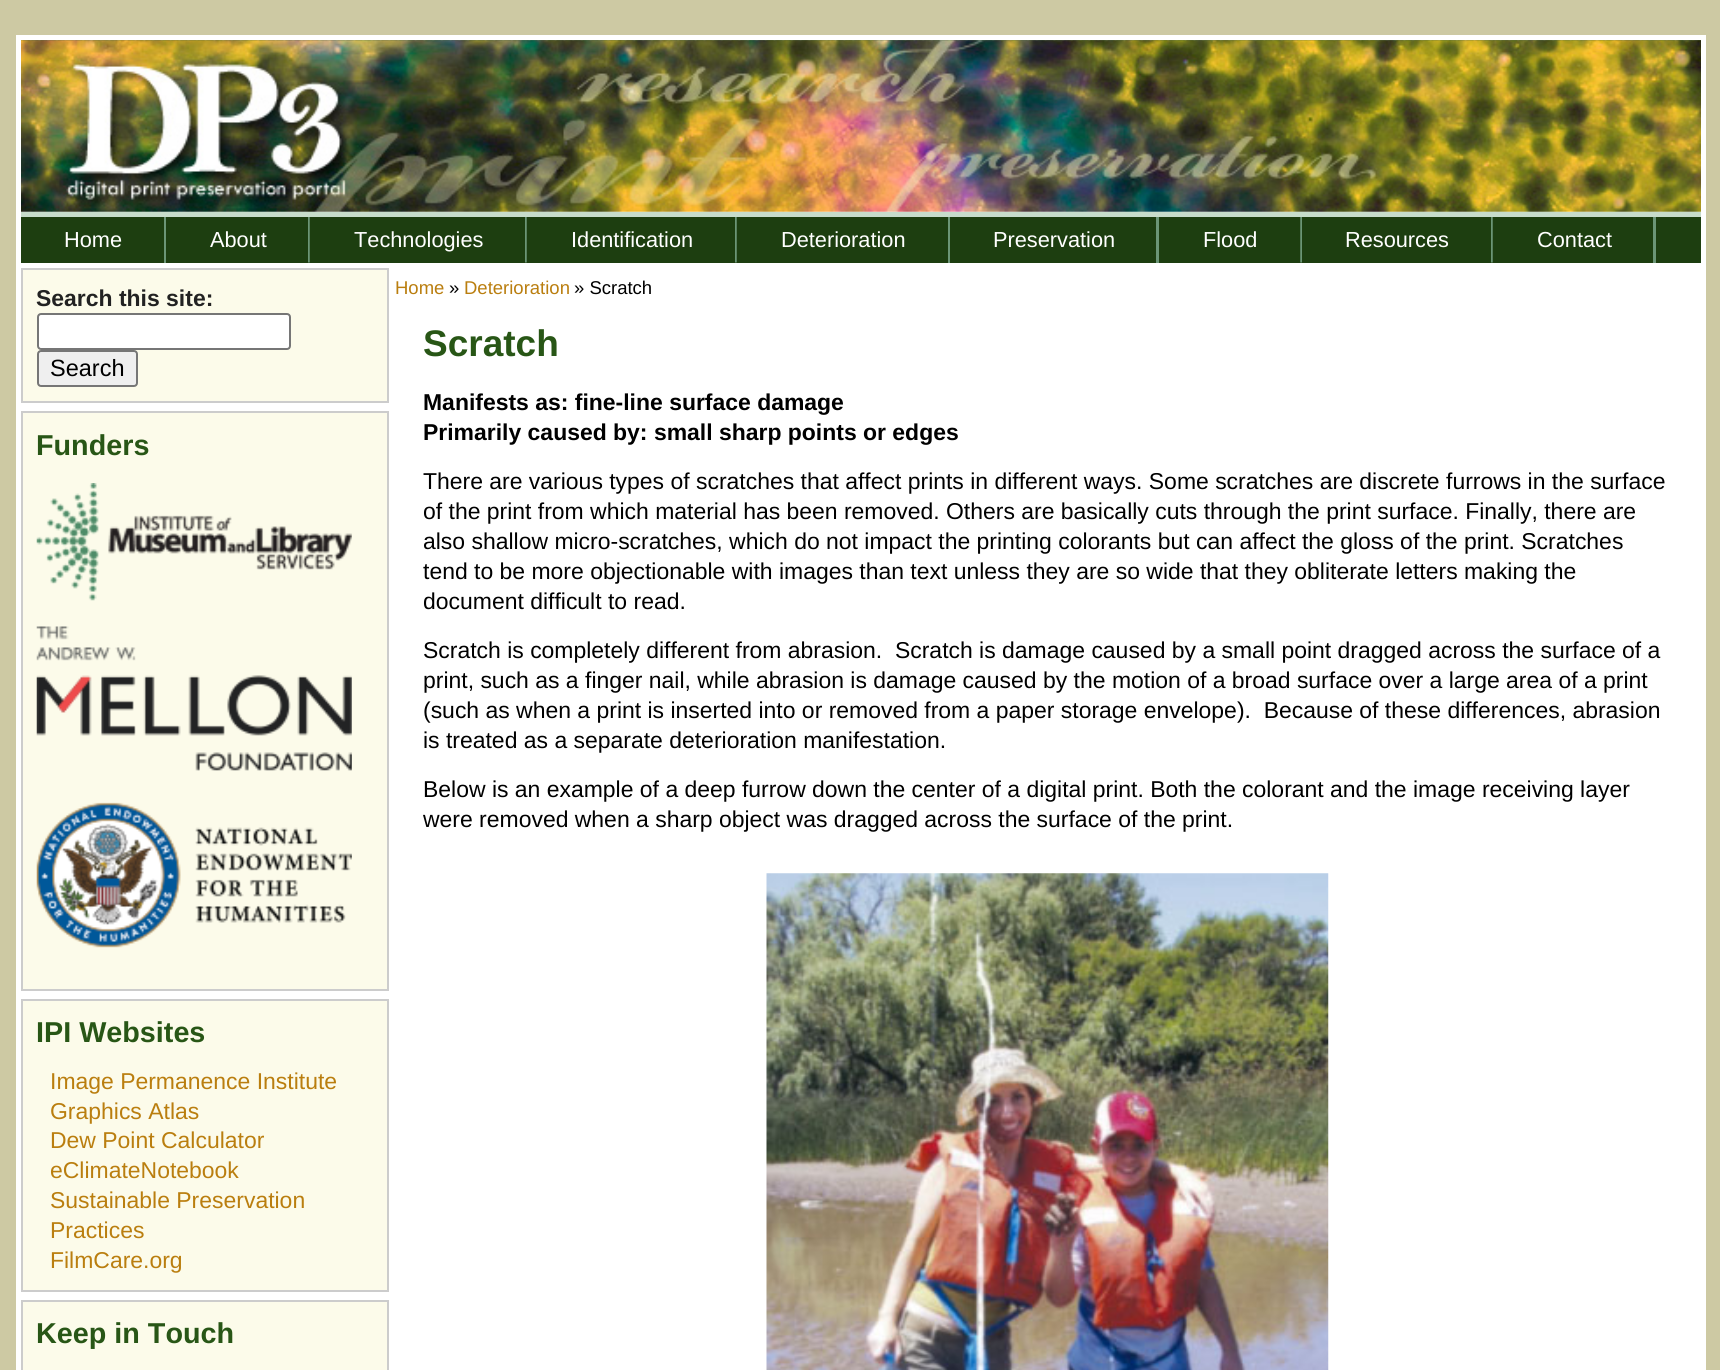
#include <cairo.h>
#include <math.h>
#include <stddef.h>

typedef struct { double x, y; const char *s; } line_t;
typedef struct { double x, y, w, h; unsigned color; } box_t;

static void ink(cairo_t *ctx, unsigned color) {
    cairo_set_source_rgb(ctx, (color >> 16) / 255.0, (color >> 8 & 255) / 255.0, (color & 255) / 255.0);
}

static void round_path(cairo_t *ctx, double x, double y, double w, double h, double r) {
    cairo_new_sub_path(ctx);
    cairo_arc(ctx, x + w - r, y + h - r, r, 0, M_PI / 2);
    cairo_arc(ctx, x + r, y + h - r, r, M_PI / 2, M_PI);
    cairo_arc(ctx, x + r, y + r, r, M_PI, 1.5 * M_PI);
    cairo_arc(ctx, x + w - r, y + r, r, 1.5 * M_PI, 2 * M_PI);
    cairo_close_path(ctx);
}

static void paste(cairo_t *ctx, const char *path, double x, double y, double w, double h) {
    cairo_surface_t *image = cairo_image_surface_create_from_png(path);
    cairo_save(ctx);
    cairo_set_source_surface(ctx, image, x, y);
    cairo_rectangle(ctx, x, y, w, h);
    cairo_fill(ctx);
    cairo_restore(ctx);
    cairo_surface_destroy(image);
}

int main(void) {
    cairo_surface_t *surface = cairo_image_surface_create(CAIRO_FORMAT_RGB24, 1720, 1370);
    cairo_t *ctx = cairo_create(surface);
    cairo_font_options_t *options = cairo_font_options_create();
    cairo_font_options_set_hint_metrics(options, CAIRO_HINT_METRICS_OFF);
    cairo_font_options_set_hint_style(options, CAIRO_HINT_STYLE_NONE);
    cairo_set_font_options(ctx, options);
    cairo_set_miter_limit(ctx, 4);
    ink(ctx, 0xCDC9A3);
    cairo_paint(ctx);
    ink(ctx, 0xFFFFFF);
    cairo_rectangle(ctx, 16, 35, 1690, 1335);
    cairo_fill(ctx);
    paste(ctx, "media/1.png", 21, 40, 1680, 1);
    paste(ctx, "media/2.png", 21, 40, 1680, 172);
    {
        static const box_t items[] = {
            {21, 217, 1680, 46, 0x1D3E10},
            {21, 212, 1680, 5, 0xC7DCCB},
            {164, 217, 2, 46, 0x6B9576},
        };
        for (size_t i = 0; i < sizeof items / sizeof *items; i++) {
            ink(ctx, items[i].color);
            cairo_rectangle(ctx, items[i].x, items[i].y, items[i].w, items[i].h);
            cairo_fill(ctx);
        }
    }
    cairo_select_font_face(ctx, "Liberation Sans", CAIRO_FONT_SLANT_NORMAL, CAIRO_FONT_WEIGHT_NORMAL);
    cairo_set_font_size(ctx, 21.75);
    ink(ctx, 0xFFFFFF);
    cairo_move_to(ctx, 64, 247);
    cairo_show_text(ctx, "Home");
    paste(ctx, "media/3.png", 308, 217, 2, 46);
    cairo_move_to(ctx, 210, 247);
    cairo_show_text(ctx, "About");
    paste(ctx, "media/3.png", 525, 217, 2, 46);
    cairo_move_to(ctx, 354, 247);
    cairo_show_text(ctx, "Technologies");
    paste(ctx, "media/3.png", 735, 217, 2, 46);
    cairo_move_to(ctx, 571, 247);
    cairo_show_text(ctx, "Identification");
    ink(ctx, 0x6B9576);
    cairo_rectangle(ctx, 948, 217, 2, 46);
    cairo_fill(ctx);
    ink(ctx, 0xFFFFFF);
    cairo_move_to(ctx, 781, 247);
    cairo_show_text(ctx, "Deterioration");
    ink(ctx, 0x6B9576);
    cairo_rectangle(ctx, 1156, 217, 3, 46);
    cairo_fill(ctx);
    ink(ctx, 0xFFFFFF);
    cairo_move_to(ctx, 993, 247);
    cairo_show_text(ctx, "Preservation");
    paste(ctx, "media/4.png", 1300, 217, 2, 46);
    cairo_move_to(ctx, 1203, 247);
    cairo_show_text(ctx, "Flood");
    paste(ctx, "media/3.png", 1491, 217, 2, 46);
    cairo_move_to(ctx, 1345, 247);
    cairo_show_text(ctx, "Resources");
    ink(ctx, 0x6B9576);
    cairo_rectangle(ctx, 1653, 217, 3, 46);
    cairo_fill(ctx);
    ink(ctx, 0xFFFFFF);
    cairo_move_to(ctx, 1537, 247);
    cairo_show_text(ctx, "Contact");
    ink(ctx, 0xFCFBEA);
    cairo_rectangle(ctx, 22, 269, 366, 133);
    cairo_fill_preserve(ctx);
    ink(ctx, 0xCCCCCC);
    cairo_stroke(ctx);
    cairo_select_font_face(ctx, "Liberation Sans", CAIRO_FONT_SLANT_NORMAL, CAIRO_FONT_WEIGHT_BOLD);
    cairo_set_font_size(ctx, 22.95);
    ink(ctx, 0x222222);
    cairo_move_to(ctx, 36, 306);
    cairo_show_text(ctx, "Search this site:");
    ink(ctx, 0xFFFFFF);
    round_path(ctx, 38, 314, 252, 35, 3);
    cairo_fill_preserve(ctx);
    ink(ctx, 0x767676);
    cairo_stroke(ctx);
    ink(ctx, 0xEFEFEF);
    round_path(ctx, 38, 351, 99, 35, 3);
    cairo_fill_preserve(ctx);
    ink(ctx, 0x767676);
    cairo_stroke(ctx);
    cairo_select_font_face(ctx, "Liberation Sans", CAIRO_FONT_SLANT_NORMAL, CAIRO_FONT_WEIGHT_NORMAL);
    cairo_set_font_size(ctx, 23.5);
    ink(ctx, 0x000000);
    cairo_move_to(ctx, 50, 376);
    cairo_show_text(ctx, "Search");
    ink(ctx, 0xFCFBEA);
    cairo_rectangle(ctx, 22, 412, 366, 578);
    cairo_fill_preserve(ctx);
    ink(ctx, 0xCCCCCC);
    cairo_stroke(ctx);
    cairo_select_font_face(ctx, "Liberation Sans", CAIRO_FONT_SLANT_NORMAL, CAIRO_FONT_WEIGHT_BOLD);
    cairo_set_font_size(ctx, 28.75);
    ink(ctx, 0x285616);
    cairo_move_to(ctx, 36, 455);
    cairo_show_text(ctx, "Funders");
    paste(ctx, "media/5.png", 36, 483, 316, 118);
    paste(ctx, "media/6.png", 36, 626, 316, 145);
    paste(ctx, "media/7.png", 36, 802, 316, 146);
    ink(ctx, 0xFCFBEA);
    cairo_rectangle(ctx, 22, 1000, 366, 291);
    cairo_fill_preserve(ctx);
    ink(ctx, 0xCCCCCC);
    cairo_stroke(ctx);
    ink(ctx, 0x285616);
    cairo_move_to(ctx, 36, 1042);
    cairo_show_text(ctx, "IPI Websites");
    cairo_select_font_face(ctx, "Liberation Sans", CAIRO_FONT_SLANT_NORMAL, CAIRO_FONT_WEIGHT_NORMAL);
    cairo_set_font_size(ctx, 22.95);
    ink(ctx, 0xBA7E0F);
    {
        static const line_t items[] = {
            {50, 1089, "Image Permanence Institute"},
            {50, 1119, "Graphics Atlas"},
            {50, 1148, "Dew Point Calculator"},
            {50, 1178, "eClimateNotebook"},
            {50, 1208, "Sustainable Preservation"},
            {50, 1238, "Practices"},
            {50, 1268, "FilmCare.org"},
        };
        for (size_t i = 0; i < sizeof items / sizeof *items; i++) {
            cairo_move_to(ctx, items[i].x, items[i].y);
            cairo_show_text(ctx, items[i].s);
        }
    }
    ink(ctx, 0xFCFBEA);
    cairo_rectangle(ctx, 22, 1301, 366, 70);
    cairo_fill_preserve(ctx);
    ink(ctx, 0xCCCCCC);
    cairo_stroke(ctx);
    cairo_select_font_face(ctx, "Liberation Sans", CAIRO_FONT_SLANT_NORMAL, CAIRO_FONT_WEIGHT_BOLD);
    cairo_set_font_size(ctx, 28.75);
    ink(ctx, 0x285616);
    cairo_move_to(ctx, 36, 1343);
    cairo_show_text(ctx, "Keep in Touch");
    cairo_select_font_face(ctx, "Liberation Sans", CAIRO_FONT_SLANT_NORMAL, CAIRO_FONT_WEIGHT_NORMAL);
    cairo_set_font_size(ctx, 18.5);
    ink(ctx, 0xBA7E0F);
    cairo_move_to(ctx, 395, 294);
    cairo_show_text(ctx, "Home");
    ink(ctx, 0x000000);
    cairo_move_to(ctx, 449, 294);
    cairo_show_text(ctx, "»");
    ink(ctx, 0xBA7E0F);
    cairo_move_to(ctx, 464, 294);
    cairo_show_text(ctx, "Deterioration");
    ink(ctx, 0x000000);
    cairo_move_to(ctx, 574, 294);
    cairo_show_text(ctx, "» Scratch");
    cairo_select_font_face(ctx, "Liberation Sans", CAIRO_FONT_SLANT_NORMAL, CAIRO_FONT_WEIGHT_BOLD);
    cairo_set_font_size(ctx, 37);
    ink(ctx, 0x285616);
    cairo_move_to(ctx, 423, 356);
    cairo_show_text(ctx, "Scratch");
    cairo_set_font_size(ctx, 22.95);
    ink(ctx, 0x000000);
    cairo_move_to(ctx, 423, 410);
    cairo_show_text(ctx, "Manifests as: fine-line surface damage");
    cairo_move_to(ctx, 423, 440);
    cairo_show_text(ctx, "Primarily caused by: small sharp points or edges");
    cairo_select_font_face(ctx, "Liberation Sans", CAIRO_FONT_SLANT_NORMAL, CAIRO_FONT_WEIGHT_NORMAL);
    {
        static const line_t items[] = {
            {423, 489, "There are various types of scratches that affect prints in different ways. Some scratches are discrete furrows in the surface"},
            {423, 519, "of the print from which material has been removed. Others are basically cuts through the print surface. Finally, there are"},
            {423, 549, "also shallow micro-scratches, which do not impact the printing colorants but can affect the gloss of the print. Scratches"},
            {423, 579, "tend to be more objectionable with images than text unless they are so wide that they obliterate letters making the"},
            {423, 609, "document difficult to read."},
            {423, 658, "Scratch is completely different from abrasion.  Scratch is damage caused by a small point dragged across the surface of a"},
            {423, 688, "print, such as a finger nail, while abrasion is damage caused by the motion of a broad surface over a large area of a print"},
            {423, 718, "(such as when a print is inserted into or removed from a paper storage envelope).  Because of these differences, abrasion"},
            {423, 748, "is treated as a separate deterioration manifestation."},
            {423, 797, "Below is an example of a deep furrow down the center of a digital print. Both the colorant and the image receiving layer"},
            {423, 827, "were removed when a sharp object was dragged across the surface of the print."},
        };
        for (size_t i = 0; i < sizeof items / sizeof *items; i++) {
            cairo_move_to(ctx, items[i].x, items[i].y);
            cairo_show_text(ctx, items[i].s);
        }
    }
    paste(ctx, "media/8.png", 766, 873, 563, 497);
    cairo_surface_write_to_png(surface, "image.png");
    cairo_font_options_destroy(options);
    cairo_destroy(ctx);
    cairo_surface_destroy(surface);
    return 0;
}
